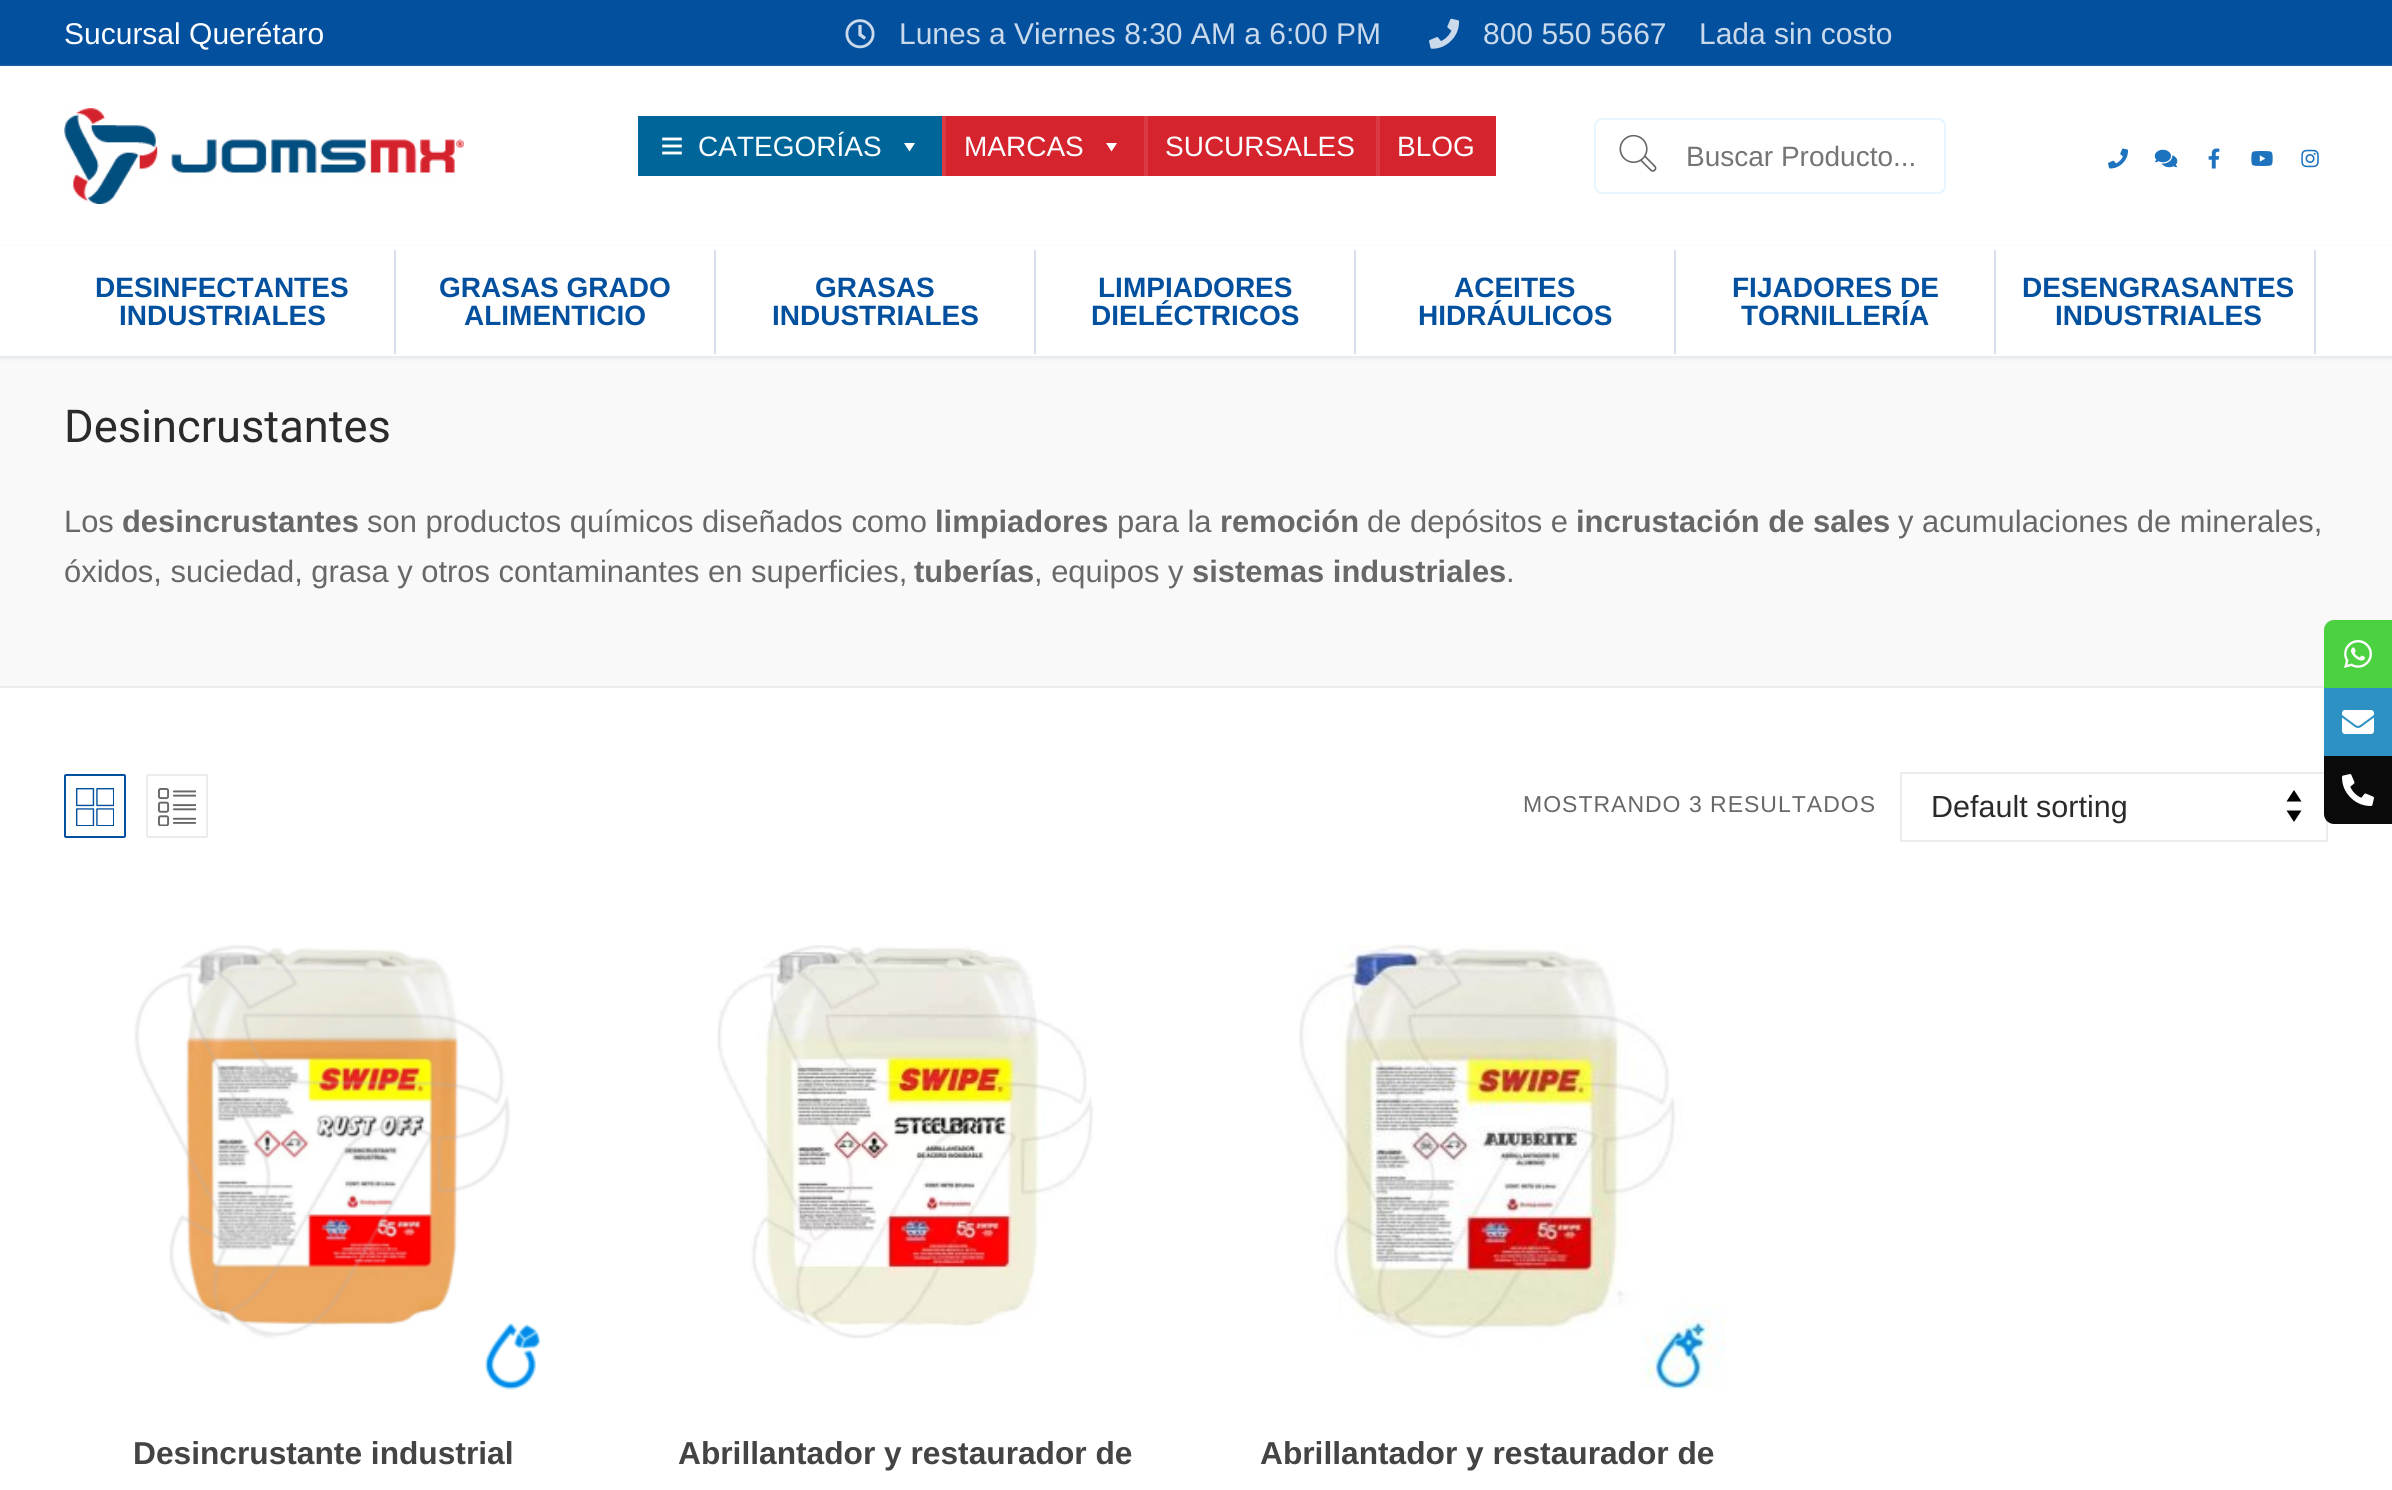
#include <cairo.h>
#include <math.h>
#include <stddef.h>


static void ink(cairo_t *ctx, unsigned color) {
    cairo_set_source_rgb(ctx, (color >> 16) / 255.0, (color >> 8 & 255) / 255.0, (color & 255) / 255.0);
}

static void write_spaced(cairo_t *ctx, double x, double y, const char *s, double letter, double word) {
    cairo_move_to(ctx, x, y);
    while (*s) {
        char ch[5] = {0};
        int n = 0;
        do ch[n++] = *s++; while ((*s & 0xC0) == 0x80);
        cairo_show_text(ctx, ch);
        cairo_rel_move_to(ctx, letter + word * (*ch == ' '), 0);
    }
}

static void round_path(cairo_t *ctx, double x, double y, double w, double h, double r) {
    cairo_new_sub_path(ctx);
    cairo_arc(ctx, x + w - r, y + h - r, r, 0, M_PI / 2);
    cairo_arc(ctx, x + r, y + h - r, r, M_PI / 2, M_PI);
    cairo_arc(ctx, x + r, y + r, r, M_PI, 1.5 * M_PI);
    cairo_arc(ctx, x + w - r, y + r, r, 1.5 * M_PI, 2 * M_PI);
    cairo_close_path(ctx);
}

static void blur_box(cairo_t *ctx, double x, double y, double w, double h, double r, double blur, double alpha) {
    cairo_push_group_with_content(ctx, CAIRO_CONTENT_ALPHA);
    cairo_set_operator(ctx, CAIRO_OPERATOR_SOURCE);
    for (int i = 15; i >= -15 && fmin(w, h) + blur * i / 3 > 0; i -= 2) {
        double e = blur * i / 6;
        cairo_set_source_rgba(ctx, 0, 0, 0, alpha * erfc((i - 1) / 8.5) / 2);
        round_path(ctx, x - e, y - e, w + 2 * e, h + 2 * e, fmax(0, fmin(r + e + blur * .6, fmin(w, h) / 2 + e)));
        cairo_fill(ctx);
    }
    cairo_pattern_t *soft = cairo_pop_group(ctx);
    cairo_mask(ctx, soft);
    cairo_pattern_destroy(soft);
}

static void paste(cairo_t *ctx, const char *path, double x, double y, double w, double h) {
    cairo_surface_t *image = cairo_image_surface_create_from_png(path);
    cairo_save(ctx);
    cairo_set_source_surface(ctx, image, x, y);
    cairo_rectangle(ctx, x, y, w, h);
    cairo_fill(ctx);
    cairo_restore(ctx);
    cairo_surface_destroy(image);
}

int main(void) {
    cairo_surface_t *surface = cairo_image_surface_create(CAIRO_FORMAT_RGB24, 2392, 1490);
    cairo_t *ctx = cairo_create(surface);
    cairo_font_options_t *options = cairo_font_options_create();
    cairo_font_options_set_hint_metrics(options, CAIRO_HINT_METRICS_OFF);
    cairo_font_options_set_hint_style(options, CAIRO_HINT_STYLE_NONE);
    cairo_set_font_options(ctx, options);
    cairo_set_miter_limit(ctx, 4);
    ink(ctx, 0xFFFFFF);
    cairo_paint(ctx);
    ink(ctx, 0x03509F);
    cairo_rectangle(ctx, 0, 0, 2392, 66);
    cairo_fill(ctx);
    cairo_select_font_face(ctx, "Liberation Sans", CAIRO_FONT_SLANT_NORMAL, CAIRO_FONT_WEIGHT_NORMAL);
    cairo_set_font_size(ctx, 30);
    ink(ctx, 0xFCFDFE);
    cairo_move_to(ctx, 64, 44);
    cairo_show_text(ctx, "Sucursal Querétaro");
    paste(ctx, "media/1.png", 845, 19, 30, 30);
    ink(ctx, 0xCADAEB);
    cairo_move_to(ctx, 899, 44);
    cairo_show_text(ctx, "Lunes a Viernes 8:30 AM a 6:00 PM");
    paste(ctx, "media/2.png", 1429, 18, 31, 31);
    cairo_move_to(ctx, 1483, 44);
    cairo_show_text(ctx, "800 550 5667");
    cairo_move_to(ctx, 1699, 44);
    cairo_show_text(ctx, "Lada sin costo");
    cairo_save(ctx);
    cairo_rectangle(ctx, 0, 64, 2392, 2);
    cairo_clip(ctx);
    ink(ctx, 0xE1E5EA);
    blur_box(ctx, 0, 68, 2392, 180, 0, 2, 1);
    cairo_restore(ctx);
    paste(ctx, "media/3.png", 64, 108, 400, 96);
    ink(ctx, 0xD5242E);
    cairo_rectangle(ctx, 946, 116, 550, 60);
    cairo_fill(ctx);
    ink(ctx, 0x006699);
    cairo_rectangle(ctx, 638, 116, 304, 60);
    cairo_fill(ctx);
    paste(ctx, "media/4.png", 662, 137, 20, 18);
    cairo_set_font_size(ctx, 28);
    ink(ctx, 0xFCFDFE);
    cairo_move_to(ctx, 698, 156);
    cairo_show_text(ctx, "CATEGORÍAS");
    ink(ctx, 0xFFFFFF);
    cairo_new_path(ctx);
    cairo_move_to(ctx, 915, 143);
    cairo_line_to(ctx, 909.5, 151.5);
    cairo_line_to(ctx, 904, 143);
    cairo_close_path(ctx);
    cairo_fill(ctx);
    ink(ctx, 0xD93A43);
    cairo_rectangle(ctx, 942, 116, 4, 60);
    cairo_fill(ctx);
    ink(ctx, 0xFCFDFE);
    cairo_move_to(ctx, 964, 156);
    cairo_show_text(ctx, "MARCAS");
    ink(ctx, 0xFFFFFF);
    cairo_new_path(ctx);
    cairo_move_to(ctx, 1117, 143);
    cairo_line_to(ctx, 1111.5, 151.5);
    cairo_line_to(ctx, 1106, 143);
    cairo_close_path(ctx);
    cairo_fill(ctx);
    ink(ctx, 0xD93A43);
    cairo_rectangle(ctx, 1144, 116, 4, 60);
    cairo_fill(ctx);
    ink(ctx, 0xFCFDFE);
    cairo_move_to(ctx, 1165, 156);
    cairo_show_text(ctx, "SUCURSALES");
    ink(ctx, 0xD93A43);
    cairo_rectangle(ctx, 1376, 116, 4, 60);
    cairo_fill(ctx);
    ink(ctx, 0xFCFDFE);
    cairo_move_to(ctx, 1397, 156);
    cairo_show_text(ctx, "BLOG");
    round_path(ctx, 1595, 119, 350, 74, 7);
    ink(ctx, 0xE7F5FF);
    cairo_stroke(ctx);
    paste(ctx, "media/5.png", 1619, 134, 38, 38);
    ink(ctx, 0x757575);
    cairo_move_to(ctx, 1686, 166);
    cairo_show_text(ctx, "Buscar Producto...");
    paste(ctx, "media/6.png", 2108, 148, 20, 21);
    paste(ctx, "media/7.png", 2154, 149, 24, 19);
    paste(ctx, "media/8.png", 2208, 148, 12, 21);
    paste(ctx, "media/9.png", 2251, 151, 22, 15);
    paste(ctx, "media/10.png", 2301, 149, 18, 19);
    ink(ctx, 0xF9F9F9);
    cairo_rectangle(ctx, 0, 356, 2392, 330);
    cairo_fill(ctx);
    ink(ctx, 0xE1E5EA);
    blur_box(ctx, 0, 248, 2392, 110, 0, 2, 1);
    ink(ctx, 0xFFFFFF);
    cairo_rectangle(ctx, 0, 246, 2392, 110);
    cairo_fill(ctx);
    ink(ctx, 0xD7DEEC);
    cairo_rectangle(ctx, 394, 250, 2, 104);
    cairo_fill(ctx);
    cairo_select_font_face(ctx, "Liberation Sans", CAIRO_FONT_SLANT_NORMAL, CAIRO_FONT_WEIGHT_BOLD);
    ink(ctx, 0x03509F);
    cairo_move_to(ctx, 95, 297);
    cairo_show_text(ctx, "DESINFECTANTES");
    cairo_move_to(ctx, 119, 325);
    cairo_show_text(ctx, "INDUSTRIALES");
    ink(ctx, 0xD7DEEC);
    cairo_rectangle(ctx, 714, 250, 2, 104);
    cairo_fill(ctx);
    ink(ctx, 0x03509F);
    cairo_move_to(ctx, 439, 297);
    cairo_show_text(ctx, "GRASAS GRADO");
    cairo_move_to(ctx, 464, 325);
    cairo_show_text(ctx, "ALIMENTICIO");
    ink(ctx, 0xD7DEEC);
    cairo_rectangle(ctx, 1034, 250, 2, 104);
    cairo_fill(ctx);
    ink(ctx, 0x03509F);
    cairo_move_to(ctx, 815, 297);
    cairo_show_text(ctx, "GRASAS");
    cairo_move_to(ctx, 772, 325);
    cairo_show_text(ctx, "INDUSTRIALES");
    ink(ctx, 0xD7DEEC);
    cairo_rectangle(ctx, 1354, 250, 2, 104);
    cairo_fill(ctx);
    ink(ctx, 0x03509F);
    cairo_move_to(ctx, 1098, 297);
    cairo_show_text(ctx, "LIMPIADORES");
    cairo_move_to(ctx, 1091, 325);
    cairo_show_text(ctx, "DIELÉCTRICOS");
    ink(ctx, 0xD7DEEC);
    cairo_rectangle(ctx, 1674, 250, 2, 104);
    cairo_fill(ctx);
    ink(ctx, 0x03509F);
    cairo_move_to(ctx, 1454, 297);
    cairo_show_text(ctx, "ACEITES");
    cairo_move_to(ctx, 1418, 325);
    cairo_show_text(ctx, "HIDRÁULICOS");
    ink(ctx, 0xD7DEEC);
    cairo_rectangle(ctx, 1994, 250, 2, 104);
    cairo_fill(ctx);
    ink(ctx, 0x03509F);
    cairo_move_to(ctx, 1732, 297);
    cairo_show_text(ctx, "FIJADORES DE");
    cairo_move_to(ctx, 1741, 325);
    cairo_show_text(ctx, "TORNILLERÍA");
    ink(ctx, 0xD7DEEC);
    cairo_rectangle(ctx, 2314, 250, 2, 104);
    cairo_fill(ctx);
    ink(ctx, 0x03509F);
    cairo_move_to(ctx, 2022, 297);
    cairo_show_text(ctx, "DESENGRASANTES");
    cairo_move_to(ctx, 2055, 325);
    cairo_show_text(ctx, "INDUSTRIALES");
    ink(ctx, 0xEAECEE);
    cairo_rectangle(ctx, 0, 686, 2324, 2);
    cairo_fill(ctx);
    cairo_select_font_face(ctx, "Roboto", CAIRO_FONT_SLANT_NORMAL, CAIRO_FONT_WEIGHT_NORMAL);
    cairo_set_font_size(ctx, 45.25);
    ink(ctx, 0x2B2B2B);
    cairo_move_to(ctx, 64, 442);
    cairo_show_text(ctx, "Desincrustantes");
    cairo_select_font_face(ctx, "Liberation Sans", CAIRO_FONT_SLANT_NORMAL, CAIRO_FONT_WEIGHT_NORMAL);
    cairo_set_font_size(ctx, 30.9);
    ink(ctx, 0x686868);
    cairo_move_to(ctx, 64, 532);
    cairo_show_text(ctx, "Los");
    cairo_select_font_face(ctx, "Liberation Sans", CAIRO_FONT_SLANT_NORMAL, CAIRO_FONT_WEIGHT_BOLD);
    cairo_move_to(ctx, 122, 532);
    cairo_show_text(ctx, "desincrustantes");
    cairo_select_font_face(ctx, "Liberation Sans", CAIRO_FONT_SLANT_NORMAL, CAIRO_FONT_WEIGHT_NORMAL);
    cairo_move_to(ctx, 367, 532);
    cairo_show_text(ctx, "son productos químicos diseñados como");
    cairo_select_font_face(ctx, "Liberation Sans", CAIRO_FONT_SLANT_NORMAL, CAIRO_FONT_WEIGHT_BOLD);
    cairo_move_to(ctx, 935, 532);
    cairo_show_text(ctx, "limpiadores");
    cairo_select_font_face(ctx, "Liberation Sans", CAIRO_FONT_SLANT_NORMAL, CAIRO_FONT_WEIGHT_NORMAL);
    cairo_move_to(ctx, 1117, 532);
    cairo_show_text(ctx, "para la");
    cairo_select_font_face(ctx, "Liberation Sans", CAIRO_FONT_SLANT_NORMAL, CAIRO_FONT_WEIGHT_BOLD);
    cairo_move_to(ctx, 1220, 532);
    cairo_show_text(ctx, "remoción");
    cairo_select_font_face(ctx, "Liberation Sans", CAIRO_FONT_SLANT_NORMAL, CAIRO_FONT_WEIGHT_NORMAL);
    cairo_move_to(ctx, 1367, 532);
    cairo_show_text(ctx, "de depósitos e");
    cairo_select_font_face(ctx, "Liberation Sans", CAIRO_FONT_SLANT_NORMAL, CAIRO_FONT_WEIGHT_BOLD);
    cairo_move_to(ctx, 1576, 532);
    cairo_show_text(ctx, "incrustación de sales");
    cairo_select_font_face(ctx, "Liberation Sans", CAIRO_FONT_SLANT_NORMAL, CAIRO_FONT_WEIGHT_NORMAL);
    cairo_move_to(ctx, 1898, 532);
    cairo_show_text(ctx, "y acumulaciones de minerales,");
    cairo_move_to(ctx, 64, 582);
    cairo_show_text(ctx, "óxidos, suciedad, grasa y otros contaminantes en superficies,");
    cairo_select_font_face(ctx, "Liberation Sans", CAIRO_FONT_SLANT_NORMAL, CAIRO_FONT_WEIGHT_BOLD);
    cairo_move_to(ctx, 914, 582);
    cairo_show_text(ctx, "tuberías");
    cairo_select_font_face(ctx, "Liberation Sans", CAIRO_FONT_SLANT_NORMAL, CAIRO_FONT_WEIGHT_NORMAL);
    cairo_move_to(ctx, 1034, 582);
    cairo_show_text(ctx, ", equipos y");
    cairo_select_font_face(ctx, "Liberation Sans", CAIRO_FONT_SLANT_NORMAL, CAIRO_FONT_WEIGHT_BOLD);
    cairo_move_to(ctx, 1192, 582);
    cairo_show_text(ctx, "sistemas industriales");
    cairo_select_font_face(ctx, "Liberation Sans", CAIRO_FONT_SLANT_NORMAL, CAIRO_FONT_WEIGHT_NORMAL);
    cairo_move_to(ctx, 1506, 582);
    cairo_show_text(ctx, ".");
    round_path(ctx, 65, 775, 60, 62, 1);
    ink(ctx, 0x03509F);
    cairo_stroke(ctx);
    paste(ctx, "media/11.png", 76, 788, 38, 38);
    round_path(ctx, 147, 775, 60, 62, 1);
    ink(ctx, 0xEAECEE);
    cairo_stroke(ctx);
    paste(ctx, "media/12.png", 158, 788, 38, 38);
    cairo_set_font_size(ctx, 23);
    ink(ctx, 0x686868);
    write_spaced(ctx, 1523, 812, "MOSTRANDO 3 RESULTADOS", 1, 0);
    ink(ctx, 0x000000);
    cairo_new_path(ctx);
    cairo_move_to(ctx, 2294, 790);
    cairo_line_to(ctx, 2286.5, 801.5);
    cairo_line_to(ctx, 2301.5, 801.5);
    cairo_close_path(ctx);
    cairo_move_to(ctx, 2294, 822);
    cairo_line_to(ctx, 2301.5, 810.5);
    cairo_line_to(ctx, 2286.5, 810.5);
    cairo_close_path(ctx);
    cairo_fill(ctx);
    cairo_rectangle(ctx, 1901, 773, 426, 68);
    ink(ctx, 0xEAECEE);
    cairo_stroke(ctx);
    cairo_set_font_size(ctx, 30.5);
    ink(ctx, 0x2B2B2B);
    cairo_move_to(ctx, 1931, 817);
    cairo_show_text(ctx, "Default sorting");
    paste(ctx, "media/13.png", 134, 945, 407, 445);
    cairo_select_font_face(ctx, "Liberation Sans", CAIRO_FONT_SLANT_NORMAL, CAIRO_FONT_WEIGHT_BOLD);
    cairo_set_font_size(ctx, 31.7);
    ink(ctx, 0x444444);
    cairo_move_to(ctx, 133, 1464);
    cairo_show_text(ctx, "Desincrustante industrial");
    paste(ctx, "media/14.png", 717, 945, 377, 394);
    cairo_move_to(ctx, 678, 1464);
    cairo_show_text(ctx, "Abrillantador y restaurador de");
    paste(ctx, "media/15.png", 1299, 944, 427, 446);
    cairo_move_to(ctx, 1260, 1464);
    cairo_show_text(ctx, "Abrillantador y restaurador de");
    ink(ctx, 0x4CD140);
    cairo_new_path(ctx);
    cairo_move_to(ctx, 2334, 620);
    cairo_line_to(ctx, 2392, 620);
    cairo_line_to(ctx, 2392, 688);
    cairo_line_to(ctx, 2324, 688);
    cairo_line_to(ctx, 2324, 630);
    cairo_curve_to(ctx, 2324, 624.5, 2328.5, 620, 2334, 620);
    cairo_close_path(ctx);
    cairo_fill(ctx);
    paste(ctx, "media/16.png", 2344, 640, 28, 28);
    ink(ctx, 0x2D91C4);
    cairo_rectangle(ctx, 2324, 688, 68, 68);
    cairo_fill(ctx);
    paste(ctx, "media/17.png", 2342, 710, 32, 24);
    ink(ctx, 0x0A0A0A);
    cairo_new_path(ctx);
    cairo_move_to(ctx, 2324, 756);
    cairo_line_to(ctx, 2392, 756);
    cairo_line_to(ctx, 2392, 824);
    cairo_line_to(ctx, 2334, 824);
    cairo_curve_to(ctx, 2328.5, 824, 2324, 819.5, 2324, 814);
    cairo_close_path(ctx);
    cairo_fill(ctx);
    paste(ctx, "media/18.png", 2342, 774, 32, 32);
    cairo_surface_write_to_png(surface, "image.png");
    cairo_font_options_destroy(options);
    cairo_destroy(ctx);
    cairo_surface_destroy(surface);
    return 0;
}
